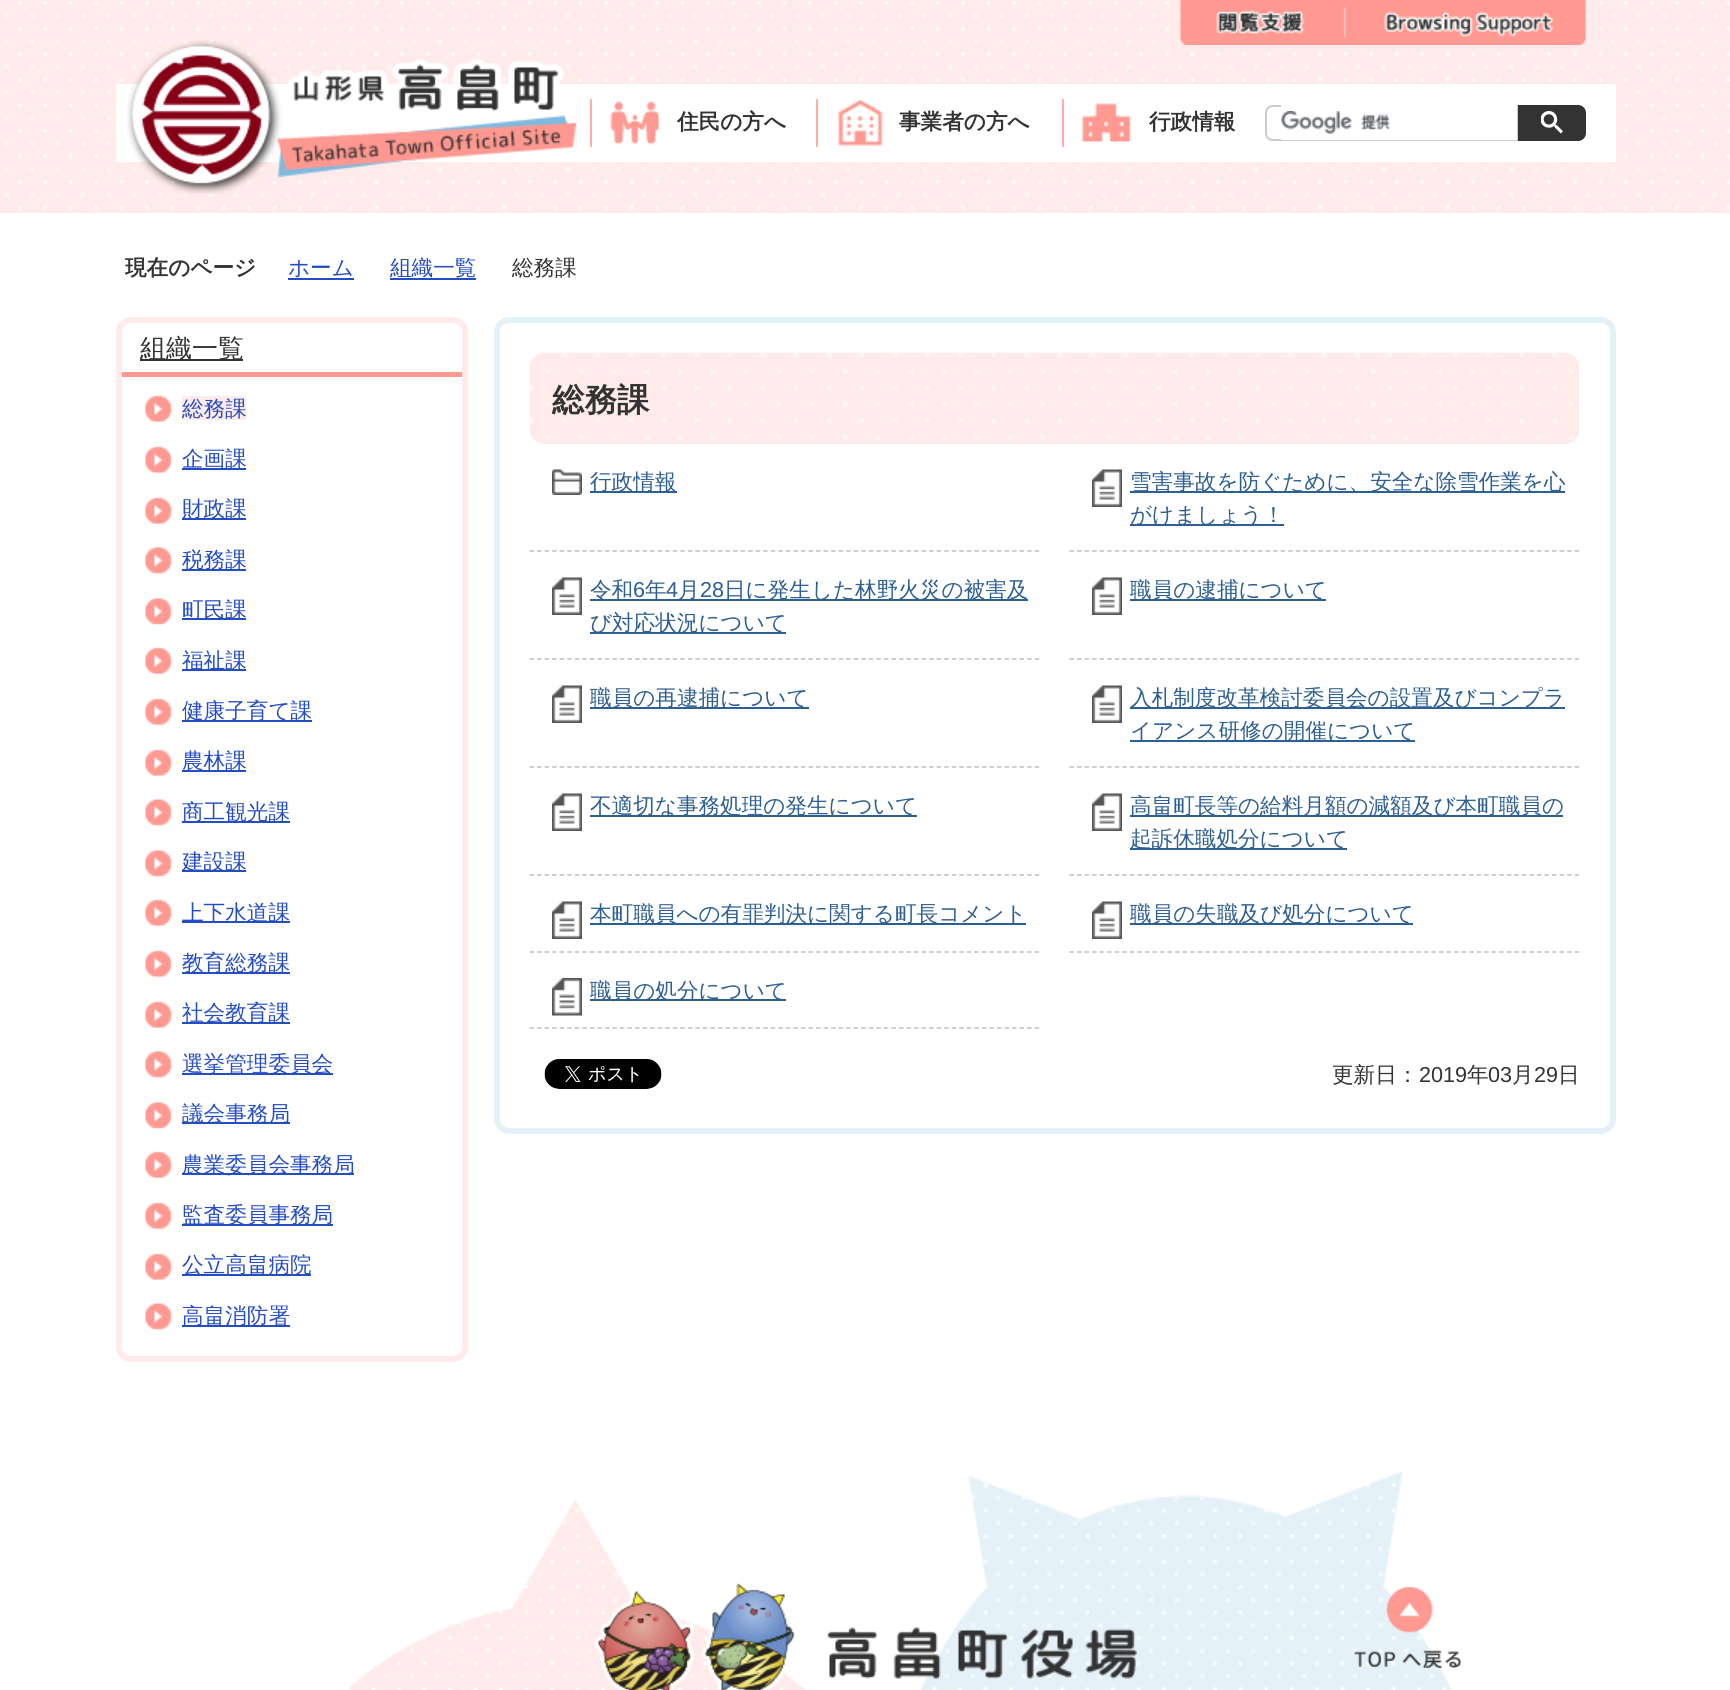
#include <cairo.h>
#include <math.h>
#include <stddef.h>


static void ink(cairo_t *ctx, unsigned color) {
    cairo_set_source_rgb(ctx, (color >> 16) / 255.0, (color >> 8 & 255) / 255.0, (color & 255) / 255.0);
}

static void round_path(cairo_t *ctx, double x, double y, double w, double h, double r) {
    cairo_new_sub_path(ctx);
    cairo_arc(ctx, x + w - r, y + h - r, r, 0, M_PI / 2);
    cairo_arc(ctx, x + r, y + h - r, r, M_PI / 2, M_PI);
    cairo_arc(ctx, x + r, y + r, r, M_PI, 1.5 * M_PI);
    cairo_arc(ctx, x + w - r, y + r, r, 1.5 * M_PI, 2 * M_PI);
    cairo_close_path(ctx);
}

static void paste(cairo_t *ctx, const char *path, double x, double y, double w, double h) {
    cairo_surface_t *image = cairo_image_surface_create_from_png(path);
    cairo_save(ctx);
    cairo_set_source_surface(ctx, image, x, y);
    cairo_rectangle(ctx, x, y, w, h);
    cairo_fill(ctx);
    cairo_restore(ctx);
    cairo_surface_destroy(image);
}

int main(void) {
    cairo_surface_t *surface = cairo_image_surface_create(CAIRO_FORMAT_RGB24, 1730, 1690);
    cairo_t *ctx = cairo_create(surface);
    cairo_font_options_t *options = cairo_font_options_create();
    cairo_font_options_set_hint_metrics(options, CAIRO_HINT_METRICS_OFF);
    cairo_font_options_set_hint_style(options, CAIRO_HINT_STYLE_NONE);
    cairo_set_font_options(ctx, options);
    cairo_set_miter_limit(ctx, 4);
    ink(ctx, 0xFFFFFF);
    cairo_paint(ctx);
    paste(ctx, "media/1.png", 0, 0, 1730, 213);
    paste(ctx, "media/2.png", 1180, 0, 406, 45);
    ink(ctx, 0xFFFFFF);
    cairo_rectangle(ctx, 116, 84, 1500, 78);
    cairo_fill(ctx);
    paste(ctx, "media/3.png", 127, 40, 450, 154);
    paste(ctx, "media/4.png", 610, 101, 49, 44);
    ink(ctx, 0xFFADA6);
    cairo_rectangle(ctx, 590, 99, 2, 48);
    cairo_fill(ctx);
    cairo_select_font_face(ctx, "WenQuanYi Zen Hei", CAIRO_FONT_SLANT_NORMAL, CAIRO_FONT_WEIGHT_BOLD);
    cairo_set_font_size(ctx, 21.6);
    ink(ctx, 0x333333);
    cairo_move_to(ctx, 677, 129);
    cairo_show_text(ctx, "住民の方へ");
    paste(ctx, "media/5.png", 838, 100, 45, 46);
    ink(ctx, 0xFFADA6);
    cairo_rectangle(ctx, 816, 99, 2, 48);
    cairo_fill(ctx);
    ink(ctx, 0x333333);
    cairo_move_to(ctx, 899, 129);
    cairo_show_text(ctx, "事業者の方へ");
    paste(ctx, "media/6.png", 1081, 103, 51, 39);
    ink(ctx, 0xFFADA6);
    cairo_rectangle(ctx, 1062, 99, 2, 48);
    cairo_fill(ctx);
    ink(ctx, 0x333333);
    cairo_move_to(ctx, 1149, 129);
    cairo_show_text(ctx, "行政情報");
    cairo_new_path(ctx);
    cairo_move_to(ctx, 1273, 106);
    cairo_line_to(ctx, 1517, 106);
    cairo_line_to(ctx, 1517, 140);
    cairo_line_to(ctx, 1273, 140);
    cairo_curve_to(ctx, 1269, 140, 1266, 137, 1266, 133);
    cairo_line_to(ctx, 1266, 113);
    cairo_curve_to(ctx, 1266, 109, 1269, 106, 1273, 106);
    cairo_close_path(ctx);
    ink(ctx, 0xCCCCCC);
    cairo_stroke(ctx);
    ink(ctx, 0xFFFFFF);
    cairo_rectangle(ctx, 1281, 105, 236, 35);
    cairo_fill(ctx);
    paste(ctx, "media/7.png", 1281, 111, 109, 23);
    ink(ctx, 0x333333);
    cairo_new_path(ctx);
    cairo_move_to(ctx, 1518, 105);
    cairo_line_to(ctx, 1578, 105);
    cairo_curve_to(ctx, 1582.5, 105, 1586, 108.5, 1586, 113);
    cairo_line_to(ctx, 1586, 133);
    cairo_curve_to(ctx, 1586, 137.5, 1582.5, 141, 1578, 141);
    cairo_line_to(ctx, 1518, 141);
    cairo_close_path(ctx);
    cairo_fill(ctx);
    paste(ctx, "media/8.png", 1541, 111, 22, 23);
    cairo_move_to(ctx, 125, 275);
    cairo_show_text(ctx, "現在のページ");
    cairo_select_font_face(ctx, "WenQuanYi Zen Hei Medium", CAIRO_FONT_SLANT_NORMAL, CAIRO_FONT_WEIGHT_NORMAL);
    ink(ctx, 0x244DC3);
    cairo_move_to(ctx, 288, 275);
    cairo_show_text(ctx, "ホーム");
    cairo_rectangle(ctx, 288, 278, 66, 2);
    cairo_fill(ctx);
    cairo_move_to(ctx, 390, 275);
    cairo_show_text(ctx, "組織一覧");
    cairo_rectangle(ctx, 390, 278, 86, 2);
    cairo_fill(ctx);
    ink(ctx, 0x333333);
    cairo_move_to(ctx, 512, 275);
    cairo_show_text(ctx, "総務課");
    round_path(ctx, 119, 320, 346, 1039, 12);
    ink(ctx, 0xFFEBE9);
    cairo_set_line_width(ctx, 6);
    cairo_stroke(ctx);
    ink(ctx, 0xFF9991);
    cairo_rectangle(ctx, 122, 372, 340, 5);
    cairo_fill(ctx);
    ink(ctx, 0x333333);
    cairo_rectangle(ctx, 140, 359, 103, 2);
    cairo_fill(ctx);
    cairo_set_font_size(ctx, 26);
    cairo_move_to(ctx, 140, 357);
    cairo_show_text(ctx, "組織一覧");
    paste(ctx, "media/9.png", 144, 395, 28, 28);
    ink(ctx, 0xFFEBE9);
    cairo_rectangle(ctx, 182, 396, 64, 24);
    cairo_fill(ctx);
    cairo_set_font_size(ctx, 21.6);
    ink(ctx, 0x244DC3);
    cairo_move_to(ctx, 182, 416);
    cairo_show_text(ctx, "総務課");
    paste(ctx, "media/9.png", 144, 446, 28, 28);
    cairo_rectangle(ctx, 182, 468, 64, 2);
    cairo_fill(ctx);
    cairo_move_to(ctx, 182, 466);
    cairo_show_text(ctx, "企画課");
    paste(ctx, "media/9.png", 144, 497, 28, 28);
    cairo_rectangle(ctx, 182, 518, 64, 2);
    cairo_fill(ctx);
    cairo_move_to(ctx, 182, 516);
    cairo_show_text(ctx, "財政課");
    paste(ctx, "media/10.png", 144, 547, 28, 28);
    cairo_rectangle(ctx, 182, 569, 64, 2);
    cairo_fill(ctx);
    cairo_move_to(ctx, 182, 567);
    cairo_show_text(ctx, "税務課");
    paste(ctx, "media/10.png", 144, 598, 28, 28);
    cairo_rectangle(ctx, 182, 618, 64, 2);
    cairo_fill(ctx);
    cairo_move_to(ctx, 182, 617);
    cairo_show_text(ctx, "町民課");
    paste(ctx, "media/9.png", 144, 647, 28, 28);
    cairo_rectangle(ctx, 182, 669, 64, 2);
    cairo_fill(ctx);
    cairo_move_to(ctx, 182, 668);
    cairo_show_text(ctx, "福祉課");
    paste(ctx, "media/9.png", 144, 698, 28, 28);
    cairo_rectangle(ctx, 182, 720, 130, 2);
    cairo_fill(ctx);
    cairo_move_to(ctx, 182, 718);
    cairo_show_text(ctx, "健康子育て課");
    paste(ctx, "media/9.png", 144, 749, 28, 28);
    cairo_rectangle(ctx, 182, 770, 64, 2);
    cairo_fill(ctx);
    cairo_move_to(ctx, 182, 768);
    cairo_show_text(ctx, "農林課");
    paste(ctx, "media/10.png", 144, 799, 28, 28);
    cairo_rectangle(ctx, 182, 821, 108, 2);
    cairo_fill(ctx);
    cairo_move_to(ctx, 182, 819);
    cairo_show_text(ctx, "商工観光課");
    paste(ctx, "media/10.png", 144, 850, 28, 28);
    cairo_rectangle(ctx, 182, 870, 64, 2);
    cairo_fill(ctx);
    cairo_move_to(ctx, 182, 869);
    cairo_show_text(ctx, "建設課");
    paste(ctx, "media/9.png", 144, 899, 28, 28);
    cairo_rectangle(ctx, 182, 921, 108, 2);
    cairo_fill(ctx);
    cairo_move_to(ctx, 182, 920);
    cairo_show_text(ctx, "上下水道課");
    paste(ctx, "media/9.png", 144, 950, 28, 28);
    cairo_rectangle(ctx, 182, 972, 108, 2);
    cairo_fill(ctx);
    cairo_move_to(ctx, 182, 970);
    cairo_show_text(ctx, "教育総務課");
    paste(ctx, "media/9.png", 144, 1001, 28, 28);
    cairo_rectangle(ctx, 182, 1022, 108, 2);
    cairo_fill(ctx);
    cairo_move_to(ctx, 182, 1020);
    cairo_show_text(ctx, "社会教育課");
    paste(ctx, "media/10.png", 144, 1051, 28, 28);
    cairo_rectangle(ctx, 182, 1073, 151, 2);
    cairo_fill(ctx);
    cairo_move_to(ctx, 182, 1071);
    cairo_show_text(ctx, "選挙管理委員会");
    paste(ctx, "media/10.png", 144, 1102, 28, 28);
    cairo_rectangle(ctx, 182, 1122, 108, 2);
    cairo_fill(ctx);
    cairo_move_to(ctx, 182, 1121);
    cairo_show_text(ctx, "議会事務局");
    paste(ctx, "media/9.png", 144, 1151, 28, 28);
    cairo_rectangle(ctx, 182, 1173, 172, 2);
    cairo_fill(ctx);
    cairo_move_to(ctx, 182, 1172);
    cairo_show_text(ctx, "農業委員会事務局");
    paste(ctx, "media/9.png", 144, 1202, 28, 28);
    cairo_rectangle(ctx, 182, 1224, 151, 2);
    cairo_fill(ctx);
    cairo_move_to(ctx, 182, 1222);
    cairo_show_text(ctx, "監査委員事務局");
    paste(ctx, "media/9.png", 144, 1253, 28, 28);
    cairo_rectangle(ctx, 182, 1274, 129, 2);
    cairo_fill(ctx);
    cairo_move_to(ctx, 182, 1272);
    cairo_show_text(ctx, "公立高畠病院");
    paste(ctx, "media/10.png", 144, 1303, 28, 28);
    cairo_rectangle(ctx, 182, 1325, 108, 2);
    cairo_fill(ctx);
    cairo_move_to(ctx, 182, 1323);
    cairo_show_text(ctx, "高畠消防署");
    round_path(ctx, 497, 320, 1116, 811, 12);
    ink(ctx, 0xE5F1F9);
    cairo_stroke(ctx);
    paste(ctx, "media/11.png", 529, 352, 1051, 92);
    cairo_select_font_face(ctx, "WenQuanYi Zen Hei", CAIRO_FONT_SLANT_NORMAL, CAIRO_FONT_WEIGHT_BOLD);
    cairo_set_font_size(ctx, 32.5);
    ink(ctx, 0x333333);
    cairo_move_to(ctx, 552, 411);
    cairo_show_text(ctx, "総務課");
    paste(ctx, "media/12.png", 552, 469, 30, 26);
    cairo_new_path(ctx);
    cairo_move_to(ctx, 529.5, 551);
    cairo_line_to(ctx, 1039.5, 551);
    ink(ctx, 0xBFBFBF);
    cairo_set_line_width(ctx, 1.5);
    cairo_set_dash(ctx, (double[]){4.5, 3.04}, 2, 0);
    cairo_stroke(ctx);
    ink(ctx, 0x2D5F92);
    cairo_rectangle(ctx, 590, 491, 87, 2);
    cairo_fill(ctx);
    cairo_select_font_face(ctx, "WenQuanYi Zen Hei Medium", CAIRO_FONT_SLANT_NORMAL, CAIRO_FONT_WEIGHT_NORMAL);
    cairo_set_font_size(ctx, 21.6);
    cairo_move_to(ctx, 590, 489);
    cairo_show_text(ctx, "行政情報");
    paste(ctx, "media/13.png", 1092, 469, 30, 38);
    cairo_new_path(ctx);
    cairo_move_to(ctx, 1069.5, 551);
    cairo_line_to(ctx, 1579.5, 551);
    ink(ctx, 0xBFBFBF);
    cairo_stroke(ctx);
    ink(ctx, 0x2D5F92);
    cairo_rectangle(ctx, 1130, 491, 435, 2);
    cairo_fill(ctx);
    cairo_move_to(ctx, 1130, 489);
    cairo_show_text(ctx, "雪害事故を防ぐために、安全な除雪作業を心");
    cairo_rectangle(ctx, 1130, 524, 154, 2);
    cairo_fill(ctx);
    cairo_move_to(ctx, 1130, 522);
    cairo_show_text(ctx, "がけましょう！");
    paste(ctx, "media/14.png", 552, 577, 30, 38);
    cairo_new_path(ctx);
    cairo_move_to(ctx, 529.5, 659);
    cairo_line_to(ctx, 1039.5, 659);
    ink(ctx, 0xBFBFBF);
    cairo_stroke(ctx);
    ink(ctx, 0x2D5F92);
    cairo_rectangle(ctx, 590, 599, 438, 2);
    cairo_fill(ctx);
    cairo_move_to(ctx, 590, 597);
    cairo_show_text(ctx, "令和");
    cairo_select_font_face(ctx, "Liberation Sans", CAIRO_FONT_SLANT_NORMAL, CAIRO_FONT_WEIGHT_NORMAL);
    cairo_move_to(ctx, 633, 597);
    cairo_show_text(ctx, "6");
    cairo_select_font_face(ctx, "WenQuanYi Zen Hei Medium", CAIRO_FONT_SLANT_NORMAL, CAIRO_FONT_WEIGHT_NORMAL);
    cairo_move_to(ctx, 645, 597);
    cairo_show_text(ctx, "年");
    cairo_select_font_face(ctx, "Liberation Sans", CAIRO_FONT_SLANT_NORMAL, CAIRO_FONT_WEIGHT_NORMAL);
    cairo_move_to(ctx, 666, 597);
    cairo_show_text(ctx, "4");
    cairo_select_font_face(ctx, "WenQuanYi Zen Hei Medium", CAIRO_FONT_SLANT_NORMAL, CAIRO_FONT_WEIGHT_NORMAL);
    cairo_move_to(ctx, 678, 597);
    cairo_show_text(ctx, "月");
    cairo_select_font_face(ctx, "Liberation Sans", CAIRO_FONT_SLANT_NORMAL, CAIRO_FONT_WEIGHT_NORMAL);
    cairo_move_to(ctx, 700, 597);
    cairo_show_text(ctx, "28");
    cairo_select_font_face(ctx, "WenQuanYi Zen Hei Medium", CAIRO_FONT_SLANT_NORMAL, CAIRO_FONT_WEIGHT_NORMAL);
    cairo_move_to(ctx, 724, 597);
    cairo_show_text(ctx, "日に発生した林野火災の被害及");
    cairo_rectangle(ctx, 590, 632, 196, 2);
    cairo_fill(ctx);
    cairo_move_to(ctx, 590, 630);
    cairo_show_text(ctx, "び対応状況について");
    paste(ctx, "media/13.png", 1092, 577, 30, 38);
    cairo_new_path(ctx);
    cairo_move_to(ctx, 1069.5, 659);
    cairo_line_to(ctx, 1579.5, 659);
    ink(ctx, 0xBFBFBF);
    cairo_stroke(ctx);
    ink(ctx, 0x2D5F92);
    cairo_rectangle(ctx, 1130, 599, 196, 2);
    cairo_fill(ctx);
    cairo_move_to(ctx, 1130, 597);
    cairo_show_text(ctx, "職員の逮捕について");
    paste(ctx, "media/14.png", 552, 685, 30, 38);
    cairo_new_path(ctx);
    cairo_move_to(ctx, 529.5, 767);
    cairo_line_to(ctx, 1039.5, 767);
    ink(ctx, 0xBFBFBF);
    cairo_stroke(ctx);
    ink(ctx, 0x2D5F92);
    cairo_rectangle(ctx, 590, 707, 219, 2);
    cairo_fill(ctx);
    cairo_move_to(ctx, 590, 705);
    cairo_show_text(ctx, "職員の再逮捕について");
    paste(ctx, "media/13.png", 1092, 685, 30, 38);
    cairo_new_path(ctx);
    cairo_move_to(ctx, 1069.5, 767);
    cairo_line_to(ctx, 1579.5, 767);
    ink(ctx, 0xBFBFBF);
    cairo_stroke(ctx);
    ink(ctx, 0x2D5F92);
    cairo_rectangle(ctx, 1130, 707, 435, 2);
    cairo_fill(ctx);
    cairo_move_to(ctx, 1130, 705);
    cairo_show_text(ctx, "入札制度改革検討委員会の設置及びコンプラ");
    cairo_rectangle(ctx, 1130, 740, 285, 2);
    cairo_fill(ctx);
    cairo_move_to(ctx, 1130, 738);
    cairo_show_text(ctx, "イアンス研修の開催について");
    paste(ctx, "media/14.png", 552, 793, 30, 38);
    cairo_new_path(ctx);
    cairo_move_to(ctx, 529.5, 875);
    cairo_line_to(ctx, 1039.5, 875);
    ink(ctx, 0xBFBFBF);
    cairo_stroke(ctx);
    ink(ctx, 0x2D5F92);
    cairo_rectangle(ctx, 590, 815, 327, 2);
    cairo_fill(ctx);
    cairo_move_to(ctx, 590, 813);
    cairo_show_text(ctx, "不適切な事務処理の発生について");
    paste(ctx, "media/13.png", 1092, 793, 30, 38);
    cairo_new_path(ctx);
    cairo_move_to(ctx, 1069.5, 875);
    cairo_line_to(ctx, 1579.5, 875);
    ink(ctx, 0xBFBFBF);
    cairo_stroke(ctx);
    ink(ctx, 0x2D5F92);
    cairo_rectangle(ctx, 1130, 815, 433, 2);
    cairo_fill(ctx);
    cairo_move_to(ctx, 1130, 813);
    cairo_show_text(ctx, "高畠町長等の給料月額の減額及び本町職員の");
    cairo_rectangle(ctx, 1130, 848, 217, 2);
    cairo_fill(ctx);
    cairo_move_to(ctx, 1130, 846);
    cairo_show_text(ctx, "起訴休職処分について");
    paste(ctx, "media/14.png", 552, 901, 30, 38);
    cairo_new_path(ctx);
    cairo_move_to(ctx, 529.5, 952);
    cairo_line_to(ctx, 1039.5, 952);
    ink(ctx, 0xBFBFBF);
    cairo_stroke(ctx);
    ink(ctx, 0x2D5F92);
    cairo_rectangle(ctx, 590, 923, 436, 2);
    cairo_fill(ctx);
    cairo_move_to(ctx, 590, 921);
    cairo_show_text(ctx, "本町職員への有罪判決に関する町長コメント");
    paste(ctx, "media/13.png", 1092, 901, 30, 38);
    cairo_new_path(ctx);
    cairo_move_to(ctx, 1069.5, 952);
    cairo_line_to(ctx, 1579.5, 952);
    ink(ctx, 0xBFBFBF);
    cairo_stroke(ctx);
    ink(ctx, 0x2D5F92);
    cairo_rectangle(ctx, 1130, 923, 283, 2);
    cairo_fill(ctx);
    cairo_move_to(ctx, 1130, 921);
    cairo_show_text(ctx, "職員の失職及び処分について");
    paste(ctx, "media/15.png", 552, 978, 30, 38);
    cairo_new_path(ctx);
    cairo_move_to(ctx, 529.5, 1028);
    cairo_line_to(ctx, 1039.5, 1028);
    ink(ctx, 0xBFBFBF);
    cairo_stroke(ctx);
    ink(ctx, 0x2D5F92);
    cairo_rectangle(ctx, 590, 999, 196, 2);
    cairo_fill(ctx);
    cairo_move_to(ctx, 590, 998);
    cairo_show_text(ctx, "職員の処分について");
    paste(ctx, "media/16.png", 544, 1059, 118, 30);
    ink(ctx, 0x333333);
    cairo_move_to(ctx, 1332, 1082);
    cairo_show_text(ctx, "更新日：");
    cairo_select_font_face(ctx, "Liberation Sans", CAIRO_FONT_SLANT_NORMAL, CAIRO_FONT_WEIGHT_NORMAL);
    cairo_move_to(ctx, 1419, 1082);
    cairo_show_text(ctx, "2019");
    cairo_select_font_face(ctx, "WenQuanYi Zen Hei Medium", CAIRO_FONT_SLANT_NORMAL, CAIRO_FONT_WEIGHT_NORMAL);
    cairo_move_to(ctx, 1467, 1082);
    cairo_show_text(ctx, "年");
    cairo_select_font_face(ctx, "Liberation Sans", CAIRO_FONT_SLANT_NORMAL, CAIRO_FONT_WEIGHT_NORMAL);
    cairo_move_to(ctx, 1488, 1082);
    cairo_show_text(ctx, "03");
    cairo_select_font_face(ctx, "WenQuanYi Zen Hei Medium", CAIRO_FONT_SLANT_NORMAL, CAIRO_FONT_WEIGHT_NORMAL);
    cairo_move_to(ctx, 1512, 1082);
    cairo_show_text(ctx, "月");
    cairo_select_font_face(ctx, "Liberation Sans", CAIRO_FONT_SLANT_NORMAL, CAIRO_FONT_WEIGHT_NORMAL);
    cairo_move_to(ctx, 1534, 1082);
    cairo_show_text(ctx, "29");
    cairo_select_font_face(ctx, "WenQuanYi Zen Hei Medium", CAIRO_FONT_SLANT_NORMAL, CAIRO_FONT_WEIGHT_NORMAL);
    cairo_move_to(ctx, 1558, 1082);
    cairo_show_text(ctx, "日");
    paste(ctx, "media/17.png", 349, 1471, 1103, 219);
    paste(ctx, "media/18.png", 594, 1583, 543, 107);
    paste(ctx, "media/19.png", 1354, 1587, 107, 81);
    cairo_surface_write_to_png(surface, "image.png");
    cairo_font_options_destroy(options);
    cairo_destroy(ctx);
    cairo_surface_destroy(surface);
    return 0;
}
